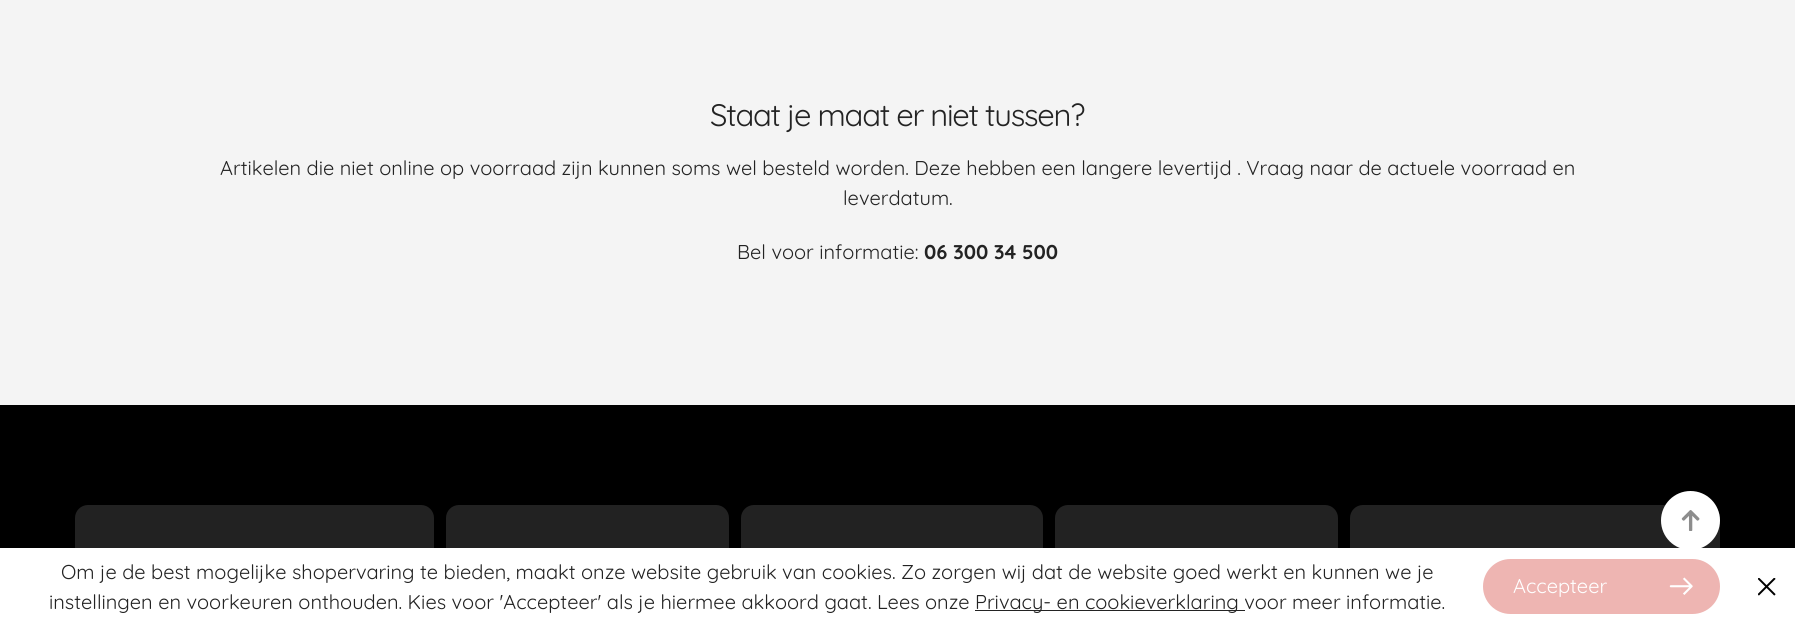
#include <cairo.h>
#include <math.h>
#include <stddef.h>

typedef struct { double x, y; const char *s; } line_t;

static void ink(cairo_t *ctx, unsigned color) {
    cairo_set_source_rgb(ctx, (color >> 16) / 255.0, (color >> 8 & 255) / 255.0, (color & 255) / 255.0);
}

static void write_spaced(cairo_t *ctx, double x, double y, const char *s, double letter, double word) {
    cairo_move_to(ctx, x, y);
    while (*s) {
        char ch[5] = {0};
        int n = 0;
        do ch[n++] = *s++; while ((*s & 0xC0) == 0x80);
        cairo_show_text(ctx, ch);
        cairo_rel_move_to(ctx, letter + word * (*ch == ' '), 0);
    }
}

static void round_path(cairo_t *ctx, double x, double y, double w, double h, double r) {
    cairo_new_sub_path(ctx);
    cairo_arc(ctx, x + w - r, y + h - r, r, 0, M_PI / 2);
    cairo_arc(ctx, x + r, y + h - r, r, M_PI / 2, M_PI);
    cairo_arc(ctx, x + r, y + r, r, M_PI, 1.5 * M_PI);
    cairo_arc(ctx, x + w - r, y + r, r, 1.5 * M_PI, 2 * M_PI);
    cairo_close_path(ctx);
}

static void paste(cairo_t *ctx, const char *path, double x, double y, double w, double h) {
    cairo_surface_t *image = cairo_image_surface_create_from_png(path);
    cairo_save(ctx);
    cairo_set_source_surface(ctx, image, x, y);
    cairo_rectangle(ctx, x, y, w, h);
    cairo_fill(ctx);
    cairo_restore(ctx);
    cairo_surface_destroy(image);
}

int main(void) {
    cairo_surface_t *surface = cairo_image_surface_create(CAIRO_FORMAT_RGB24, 1795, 624);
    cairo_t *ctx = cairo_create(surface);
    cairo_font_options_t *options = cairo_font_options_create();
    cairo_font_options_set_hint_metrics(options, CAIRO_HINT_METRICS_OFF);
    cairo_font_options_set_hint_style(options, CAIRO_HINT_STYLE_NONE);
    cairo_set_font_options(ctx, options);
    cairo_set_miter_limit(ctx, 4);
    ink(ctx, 0xF4F4F4);
    cairo_paint(ctx);
    cairo_select_font_face(ctx, "Quicksand Light", CAIRO_FONT_SLANT_NORMAL, CAIRO_FONT_WEIGHT_NORMAL);
    cairo_set_font_size(ctx, 31);
    ink(ctx, 0x232323);
    write_spaced(ctx, 710, 126, "Staat je maat er niet tussen?", -1.25, 0);
    cairo_set_font_size(ctx, 20);
    {
        static const line_t items[] = {
            {220, 175, "Artikelen die niet online op voorraad zijn kunnen soms wel besteld worden. Deze hebben een langere levertijd . Vraag naar de actuele voorraad en"},
            {843, 205, "leverdatum."},
            {737, 259, "Bel voor informatie:"},
        };
        for (size_t i = 0; i < sizeof items / sizeof *items; i++) {
            cairo_move_to(ctx, items[i].x, items[i].y);
            cairo_show_text(ctx, items[i].s);
        }
    }
    cairo_select_font_face(ctx, "Quicksand", CAIRO_FONT_SLANT_NORMAL, CAIRO_FONT_WEIGHT_BOLD);
    cairo_move_to(ctx, 924, 259);
    cairo_show_text(ctx, "06 300 34 500");
    ink(ctx, 0x000000);
    cairo_rectangle(ctx, 0, 405, 1795, 143);
    cairo_fill(ctx);
    ink(ctx, 0x222222);
    round_path(ctx, 75, 505, 359, 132, 13);
    cairo_fill(ctx);
    round_path(ctx, 446, 505, 283, 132, 13);
    cairo_fill(ctx);
    round_path(ctx, 741, 505, 302, 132, 13);
    cairo_fill(ctx);
    round_path(ctx, 1055, 505, 283, 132, 13);
    cairo_fill(ctx);
    round_path(ctx, 1350, 505, 370, 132, 13);
    cairo_fill(ctx);
    ink(ctx, 0xFFFFFF);
    cairo_arc(ctx, 1690.5, 520.5, 29.5, 0, 2 * M_PI);
    cairo_fill(ctx);
    paste(ctx, "media/1.png", 1681, 510, 19, 21);
    cairo_rectangle(ctx, 0, 548, 1795, 76);
    cairo_fill(ctx);
    cairo_select_font_face(ctx, "Quicksand Light", CAIRO_FONT_SLANT_NORMAL, CAIRO_FONT_WEIGHT_NORMAL);
    ink(ctx, 0x232323);
    cairo_move_to(ctx, 61, 579);
    cairo_show_text(ctx, "Om je de best mogelijke shopervaring te bieden, maakt onze website gebruik van cookies. Zo zorgen wij dat de website goed werkt en kunnen we je");
    cairo_move_to(ctx, 49, 609);
    cairo_show_text(ctx, "instellingen en voorkeuren onthouden. Kies voor 'Accepteer' als je hiermee akkoord gaat. Lees onze");
    cairo_rectangle(ctx, 975, 610, 270, 1);
    cairo_fill(ctx);
    cairo_move_to(ctx, 975, 609);
    cairo_show_text(ctx, "Privacy- en cookieverklaring voor meer informatie.");
    ink(ctx, 0xEEB5B2);
    round_path(ctx, 1483, 559, 237, 55, 27.5);
    cairo_fill(ctx);
    ink(ctx, 0xFFFFFF);
    cairo_move_to(ctx, 1513, 593);
    cairo_show_text(ctx, "Accepteer");
    paste(ctx, "media/2.png", 1669, 577, 24, 18);
    paste(ctx, "media/3.png", 1758, 578, 18, 18);
    cairo_surface_write_to_png(surface, "image.png");
    cairo_font_options_destroy(options);
    cairo_destroy(ctx);
    cairo_surface_destroy(surface);
    return 0;
}
